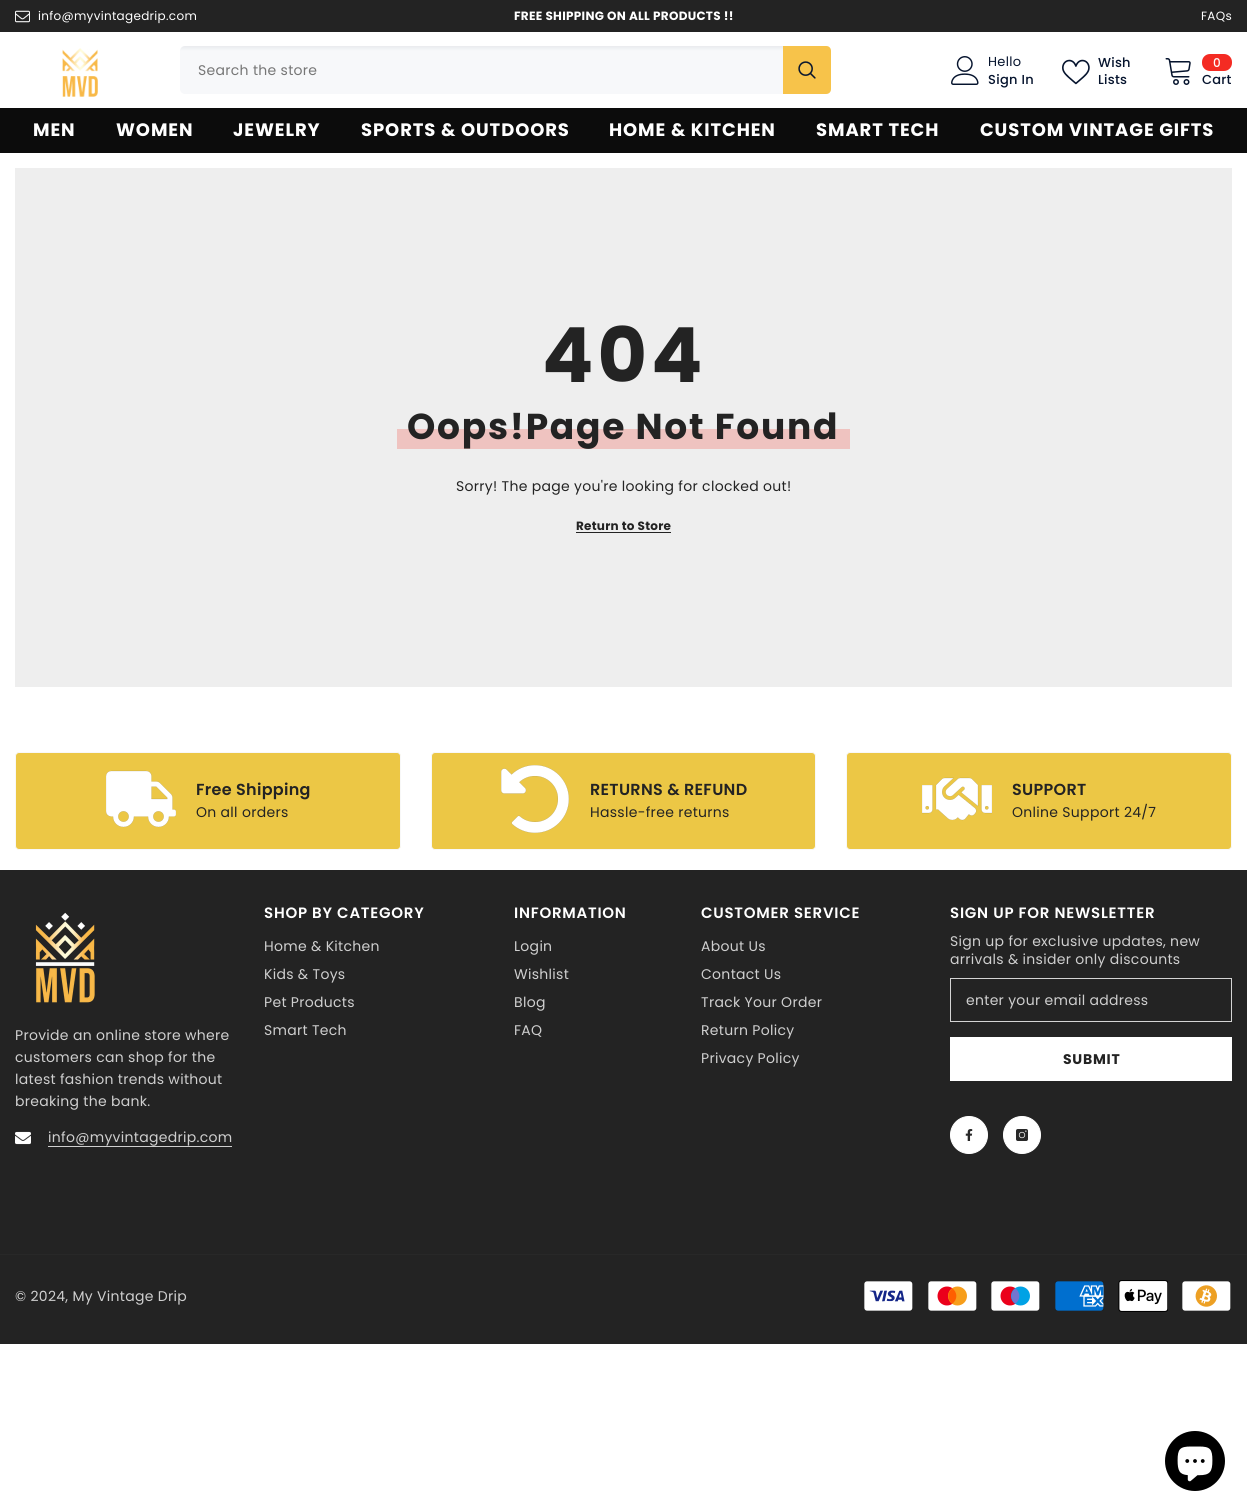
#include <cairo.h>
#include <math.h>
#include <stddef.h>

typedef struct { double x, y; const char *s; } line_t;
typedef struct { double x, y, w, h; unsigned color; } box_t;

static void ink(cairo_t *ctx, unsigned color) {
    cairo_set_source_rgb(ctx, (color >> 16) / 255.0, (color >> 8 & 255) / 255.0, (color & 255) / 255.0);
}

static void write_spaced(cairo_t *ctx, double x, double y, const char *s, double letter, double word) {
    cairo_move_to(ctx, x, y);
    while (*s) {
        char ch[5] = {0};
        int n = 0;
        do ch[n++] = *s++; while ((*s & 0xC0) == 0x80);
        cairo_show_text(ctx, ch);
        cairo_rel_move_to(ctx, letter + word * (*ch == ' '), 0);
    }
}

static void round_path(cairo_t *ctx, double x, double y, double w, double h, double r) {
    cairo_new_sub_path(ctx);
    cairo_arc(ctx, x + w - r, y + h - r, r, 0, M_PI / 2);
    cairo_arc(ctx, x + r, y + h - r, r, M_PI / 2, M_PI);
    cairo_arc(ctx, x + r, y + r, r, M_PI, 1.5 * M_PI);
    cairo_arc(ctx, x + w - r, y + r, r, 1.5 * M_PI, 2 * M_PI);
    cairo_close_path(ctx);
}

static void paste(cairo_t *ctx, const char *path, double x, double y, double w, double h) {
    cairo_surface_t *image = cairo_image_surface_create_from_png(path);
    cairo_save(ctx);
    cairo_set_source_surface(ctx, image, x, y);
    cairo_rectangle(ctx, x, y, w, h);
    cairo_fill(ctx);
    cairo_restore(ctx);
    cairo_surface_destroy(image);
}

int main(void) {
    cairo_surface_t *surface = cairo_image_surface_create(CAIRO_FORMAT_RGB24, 1247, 1512);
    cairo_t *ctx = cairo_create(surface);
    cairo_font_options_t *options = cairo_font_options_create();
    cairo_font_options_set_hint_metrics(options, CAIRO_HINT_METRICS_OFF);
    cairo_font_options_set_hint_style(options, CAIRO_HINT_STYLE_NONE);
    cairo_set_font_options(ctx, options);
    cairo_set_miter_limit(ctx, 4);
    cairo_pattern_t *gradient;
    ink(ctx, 0xFFFFFF);
    cairo_paint(ctx);
    ink(ctx, 0x232323);
    cairo_rectangle(ctx, 0, 0, 1247, 32);
    cairo_fill(ctx);
    paste(ctx, "media/1.png", 15, 10, 15, 13);
    cairo_select_font_face(ctx, "Poppins", CAIRO_FONT_SLANT_NORMAL, CAIRO_FONT_WEIGHT_NORMAL);
    cairo_set_font_size(ctx, 12);
    ink(ctx, 0xFFFFFF);
    write_spaced(ctx, 38, 20, "info@myvintagedrip.com", 0.3, 0);
    cairo_select_font_face(ctx, "Poppins", CAIRO_FONT_SLANT_NORMAL, CAIRO_FONT_WEIGHT_BOLD);
    write_spaced(ctx, 514, 20, "FREE SHIPPING ON ALL PRODUCTS !!", 0.3, 0);
    cairo_select_font_face(ctx, "Poppins", CAIRO_FONT_SLANT_NORMAL, CAIRO_FONT_WEIGHT_NORMAL);
    write_spaced(ctx, 1201, 20, "FAQs", 0.3, 0);
    paste(ctx, "media/2.png", 62, 48, 36, 49);
    gradient = cairo_pattern_create_linear(506, 46, 506, 94);
    cairo_pattern_add_color_stop_rgba(gradient, 0, 0.914, 0.922, 0.933, 1);
    cairo_pattern_add_color_stop_rgba(gradient, 0.1, 0.969, 0.973, 0.98, 1);
    cairo_pattern_add_color_stop_rgba(gradient, 1, 0.969, 0.973, 0.98, 1);
    cairo_set_source(ctx, gradient);
    cairo_pattern_destroy(gradient);
    round_path(ctx, 180, 46, 651, 48, 5);
    cairo_fill(ctx);
    cairo_set_font_size(ctx, 14);
    ink(ctx, 0x767676);
    write_spaced(ctx, 198, 75, "Search the store", 0.3, 0);
    ink(ctx, 0xF7C34A);
    cairo_new_path(ctx);
    cairo_move_to(ctx, 783, 46);
    cairo_line_to(ctx, 826, 46);
    cairo_curve_to(ctx, 829, 46, 831, 48, 831, 51);
    cairo_line_to(ctx, 831, 89);
    cairo_curve_to(ctx, 831, 92, 829, 94, 826, 94);
    cairo_line_to(ctx, 783, 94);
    cairo_close_path(ctx);
    cairo_fill(ctx);
    paste(ctx, "media/3.png", 798, 61, 18, 18);
    paste(ctx, "media/4.png", 951, 56, 28, 29);
    cairo_set_font_size(ctx, 13);
    ink(ctx, 0x06142E);
    write_spaced(ctx, 988, 66, "Hello", 0.3, 0);
    cairo_select_font_face(ctx, "Poppins Medium", CAIRO_FONT_SLANT_NORMAL, CAIRO_FONT_WEIGHT_NORMAL);
    write_spaced(ctx, 988, 84, "Sign In", 0.3, 0);
    paste(ctx, "media/5.png", 1062, 59, 28, 26);
    write_spaced(ctx, 1098, 67, "Wish", 0.25, 0);
    write_spaced(ctx, 1098, 84, "Lists", 0.25, 0);
    paste(ctx, "media/6.png", 1165, 58, 26, 27);
    ink(ctx, 0xF42B23);
    round_path(ctx, 1202, 54, 30, 17, 8);
    cairo_fill(ctx);
    cairo_set_font_size(ctx, 12);
    ink(ctx, 0xFFFFFF);
    cairo_move_to(ctx, 1213, 67);
    cairo_show_text(ctx, "0");
    cairo_set_font_size(ctx, 13);
    ink(ctx, 0x06142E);
    write_spaced(ctx, 1202, 84, "Cart", 0.25, 0);
    ink(ctx, 0x0C0C0C);
    cairo_rectangle(ctx, 0, 108, 1247, 45);
    cairo_fill(ctx);
    cairo_select_font_face(ctx, "Poppins", CAIRO_FONT_SLANT_NORMAL, CAIRO_FONT_WEIGHT_BOLD);
    cairo_set_font_size(ctx, 18);
    ink(ctx, 0xFFFFFF);
    {
        static const line_t items[] = {
            {33, 136, "MEN"},
            {116, 136, "WOMEN"},
            {233, 136, "JEWELRY"},
            {361, 136, "SPORTS & OUTDOORS"},
            {609, 136, "HOME & KITCHEN"},
            {816, 136, "SMART TECH"},
            {980, 136, "CUSTOM VINTAGE GIFTS"},
        };
        for (size_t i = 0; i < sizeof items / sizeof *items; i++) {
            write_spaced(ctx, items[i].x, items[i].y, items[i].s, 0.9, 0);
        }
    }
    ink(ctx, 0xEEEEEE);
    cairo_rectangle(ctx, 15, 168, 1217, 519);
    cairo_fill(ctx);
    cairo_set_font_size(ctx, 76);
    ink(ctx, 0x232323);
    write_spaced(ctx, 542, 382, "404", 4, 0);
    ink(ctx, 0xEFC3C0);
    cairo_rectangle(ctx, 397, 429, 453, 20);
    cairo_fill(ctx);
    cairo_set_font_size(ctx, 36);
    ink(ctx, 0x232323);
    write_spaced(ctx, 407, 439, "Oops!Page Not Found", 1.75, 0);
    cairo_select_font_face(ctx, "Poppins", CAIRO_FONT_SLANT_NORMAL, CAIRO_FONT_WEIGHT_NORMAL);
    cairo_set_font_size(ctx, 14);
    write_spaced(ctx, 456, 491, "Sorry! The page you're looking for clocked out!", 0.3, 0);
    cairo_select_font_face(ctx, "Poppins", CAIRO_FONT_SLANT_NORMAL, CAIRO_FONT_WEIGHT_BOLD);
    cairo_set_font_size(ctx, 12);
    write_spaced(ctx, 576, 530, "Return to Store", 0.25, 0);
    cairo_rectangle(ctx, 576, 532, 95, 1);
    cairo_fill(ctx);
    ink(ctx, 0xECC745);
    round_path(ctx, 15.5, 752.5, 385, 97, 3.5);
    cairo_fill_preserve(ctx);
    ink(ctx, 0xF8F8F8);
    cairo_set_line_width(ctx, 1);
    cairo_stroke(ctx);
    paste(ctx, "media/7.png", 106, 770, 70, 58);
    cairo_select_font_face(ctx, "Poppins SemiBold", CAIRO_FONT_SLANT_NORMAL, CAIRO_FONT_WEIGHT_NORMAL);
    cairo_set_font_size(ctx, 16);
    ink(ctx, 0x232323);
    write_spaced(ctx, 196, 795, "Free Shipping", 0.3, 0);
    cairo_select_font_face(ctx, "Poppins", CAIRO_FONT_SLANT_NORMAL, CAIRO_FONT_WEIGHT_NORMAL);
    cairo_set_font_size(ctx, 14);
    write_spaced(ctx, 196, 817, "On all orders", 0.3, 0);
    ink(ctx, 0xECC745);
    round_path(ctx, 431.5, 752.5, 384, 97, 3.5);
    cairo_fill_preserve(ctx);
    ink(ctx, 0xF8F8F8);
    cairo_stroke(ctx);
    paste(ctx, "media/8.png", 501, 765, 68, 68);
    cairo_select_font_face(ctx, "Poppins SemiBold", CAIRO_FONT_SLANT_NORMAL, CAIRO_FONT_WEIGHT_NORMAL);
    cairo_set_font_size(ctx, 16);
    ink(ctx, 0x232323);
    write_spaced(ctx, 590, 795, "RETURNS & REFUND", 0.3, 0);
    cairo_select_font_face(ctx, "Poppins", CAIRO_FONT_SLANT_NORMAL, CAIRO_FONT_WEIGHT_NORMAL);
    cairo_set_font_size(ctx, 14);
    write_spaced(ctx, 590, 817, "Hassle-free returns", 0.3, 0);
    ink(ctx, 0xECC745);
    round_path(ctx, 846.5, 752.5, 385, 97, 3.5);
    cairo_fill_preserve(ctx);
    ink(ctx, 0xF8F8F8);
    cairo_stroke(ctx);
    paste(ctx, "media/9.png", 922, 777, 70, 44);
    cairo_select_font_face(ctx, "Poppins SemiBold", CAIRO_FONT_SLANT_NORMAL, CAIRO_FONT_WEIGHT_NORMAL);
    cairo_set_font_size(ctx, 16);
    ink(ctx, 0x232323);
    write_spaced(ctx, 1012, 795, "SUPPORT", 0.3, 0);
    cairo_select_font_face(ctx, "Poppins", CAIRO_FONT_SLANT_NORMAL, CAIRO_FONT_WEIGHT_NORMAL);
    cairo_set_font_size(ctx, 14);
    write_spaced(ctx, 1012, 817, "Online Support 24/7", 0.3, 0);
    cairo_rectangle(ctx, 0, 870, 1247, 384);
    cairo_fill(ctx);
    cairo_select_font_face(ctx, "Poppins SemiBold", CAIRO_FONT_SLANT_NORMAL, CAIRO_FONT_WEIGHT_NORMAL);
    cairo_set_font_size(ctx, 15);
    ink(ctx, 0xFFFFFF);
    write_spaced(ctx, 264, 918, "SHOP BY CATEGORY", 0.75, 0);
    cairo_select_font_face(ctx, "Poppins", CAIRO_FONT_SLANT_NORMAL, CAIRO_FONT_WEIGHT_NORMAL);
    cairo_set_font_size(ctx, 14);
    ink(ctx, 0xCFCFCF);
    {
        static const line_t items[] = {
            {264, 951, "Home & Kitchen"},
            {264, 979, "Kids & Toys"},
            {264, 1007, "Pet Products"},
            {264, 1035, "Smart Tech"},
        };
        for (size_t i = 0; i < sizeof items / sizeof *items; i++) {
            write_spaced(ctx, items[i].x, items[i].y, items[i].s, 0.3, 0);
        }
    }
    cairo_select_font_face(ctx, "Poppins SemiBold", CAIRO_FONT_SLANT_NORMAL, CAIRO_FONT_WEIGHT_NORMAL);
    cairo_set_font_size(ctx, 15);
    ink(ctx, 0xFFFFFF);
    write_spaced(ctx, 514, 918, "INFORMATION", 0.75, 0);
    cairo_select_font_face(ctx, "Poppins", CAIRO_FONT_SLANT_NORMAL, CAIRO_FONT_WEIGHT_NORMAL);
    cairo_set_font_size(ctx, 14);
    ink(ctx, 0xCFCFCF);
    {
        static const line_t items[] = {
            {514, 951, "Login"},
            {514, 979, "Wishlist"},
            {514, 1007, "Blog"},
            {514, 1035, "FAQ"},
        };
        for (size_t i = 0; i < sizeof items / sizeof *items; i++) {
            write_spaced(ctx, items[i].x, items[i].y, items[i].s, 0.3, 0);
        }
    }
    cairo_select_font_face(ctx, "Poppins SemiBold", CAIRO_FONT_SLANT_NORMAL, CAIRO_FONT_WEIGHT_NORMAL);
    cairo_set_font_size(ctx, 15);
    ink(ctx, 0xFFFFFF);
    write_spaced(ctx, 701, 918, "CUSTOMER SERVICE", 0.75, 0);
    cairo_select_font_face(ctx, "Poppins", CAIRO_FONT_SLANT_NORMAL, CAIRO_FONT_WEIGHT_NORMAL);
    cairo_set_font_size(ctx, 14);
    ink(ctx, 0xCFCFCF);
    {
        static const line_t items[] = {
            {701, 951, "About Us"},
            {701, 979, "Contact Us"},
            {701, 1007, "Track Your Order"},
            {701, 1035, "Return Policy"},
            {701, 1063, "Privacy Policy"},
        };
        for (size_t i = 0; i < sizeof items / sizeof *items; i++) {
            write_spaced(ctx, items[i].x, items[i].y, items[i].s, 0.3, 0);
        }
    }
    cairo_select_font_face(ctx, "Poppins SemiBold", CAIRO_FONT_SLANT_NORMAL, CAIRO_FONT_WEIGHT_NORMAL);
    cairo_set_font_size(ctx, 15);
    ink(ctx, 0xFFFFFF);
    write_spaced(ctx, 950, 918, "SIGN UP FOR NEWSLETTER", 0.75, 0);
    cairo_select_font_face(ctx, "Poppins", CAIRO_FONT_SLANT_NORMAL, CAIRO_FONT_WEIGHT_NORMAL);
    cairo_set_font_size(ctx, 14);
    ink(ctx, 0xCFCFCF);
    write_spaced(ctx, 950, 946, "Sign up for exclusive updates, new", 0.3, 0);
    write_spaced(ctx, 950, 964, "arrivals & insider only discounts", 0.3, 0);
    cairo_rectangle(ctx, 950.5, 978.5, 281, 43);
    ink(ctx, 0xD3D3D3);
    cairo_stroke(ctx);
    ink(ctx, 0xCFCFCF);
    write_spaced(ctx, 966, 1005, "enter your email address", 0.3, 0);
    ink(ctx, 0xFFFFFF);
    cairo_rectangle(ctx, 950, 1037, 282, 44);
    cairo_fill(ctx);
    cairo_select_font_face(ctx, "Poppins", CAIRO_FONT_SLANT_NORMAL, CAIRO_FONT_WEIGHT_BOLD);
    ink(ctx, 0x232323);
    write_spaced(ctx, 1063, 1064, "SUBMIT", 0.75, 0);
    ink(ctx, 0xFFFFFF);
    cairo_new_path(ctx);
    cairo_arc(ctx, 969, 1135, 18.5, 0, 2 * M_PI);
    cairo_fill_preserve(ctx);
    cairo_stroke(ctx);
    paste(ctx, "media/10.png", 965, 1129, 8, 12);
    cairo_arc(ctx, 1022, 1135, 18.5, 0, 2 * M_PI);
    cairo_fill_preserve(ctx);
    cairo_stroke(ctx);
    paste(ctx, "media/11.png", 1016, 1129, 12, 12);
    paste(ctx, "media/12.png", 35, 912, 60, 91);
    cairo_select_font_face(ctx, "Poppins", CAIRO_FONT_SLANT_NORMAL, CAIRO_FONT_WEIGHT_NORMAL);
    ink(ctx, 0xCFCFCF);
    {
        static const line_t items[] = {
            {15, 1040, "Provide an online store where"},
            {15, 1062, "customers can shop for the"},
            {15, 1084, "latest fashion trends without"},
            {15, 1106, "breaking the bank."},
        };
        for (size_t i = 0; i < sizeof items / sizeof *items; i++) {
            write_spaced(ctx, items[i].x, items[i].y, items[i].s, 0.3, 0);
        }
    }
    paste(ctx, "media/13.png", 15, 1131, 16, 14);
    write_spaced(ctx, 48, 1142, "info@myvintagedrip.com", 0.3, 0);
    {
        static const box_t items[] = {
            {48, 1146, 184, 1, 0xCFCFCF},
            {0, 1255, 1247, 89, 0x232323},
            {0, 1254, 1247, 1, 0x282828},
        };
        for (size_t i = 0; i < sizeof items / sizeof *items; i++) {
            ink(ctx, items[i].color);
            cairo_rectangle(ctx, items[i].x, items[i].y, items[i].w, items[i].h);
            cairo_fill(ctx);
        }
    }
    ink(ctx, 0xCFCFCF);
    write_spaced(ctx, 15, 1301, "© 2024, My Vintage Drip", 0.3, 0);
    paste(ctx, "media/14.png", 864, 1281, 49, 30);
    paste(ctx, "media/15.png", 928, 1281, 49, 30);
    paste(ctx, "media/16.png", 991, 1281, 49, 30);
    paste(ctx, "media/17.png", 1055, 1281, 49, 30);
    paste(ctx, "media/18.png", 1118, 1280, 50, 32);
    paste(ctx, "media/19.png", 1182, 1281, 49, 30);
    ink(ctx, 0x000000);
    cairo_arc(ctx, 1195, 1461, 30, 0, 2 * M_PI);
    cairo_fill(ctx);
    paste(ctx, "media/20.png", 1177, 1446, 36, 36);
    cairo_surface_write_to_png(surface, "image.png");
    cairo_font_options_destroy(options);
    cairo_destroy(ctx);
    cairo_surface_destroy(surface);
    return 0;
}
